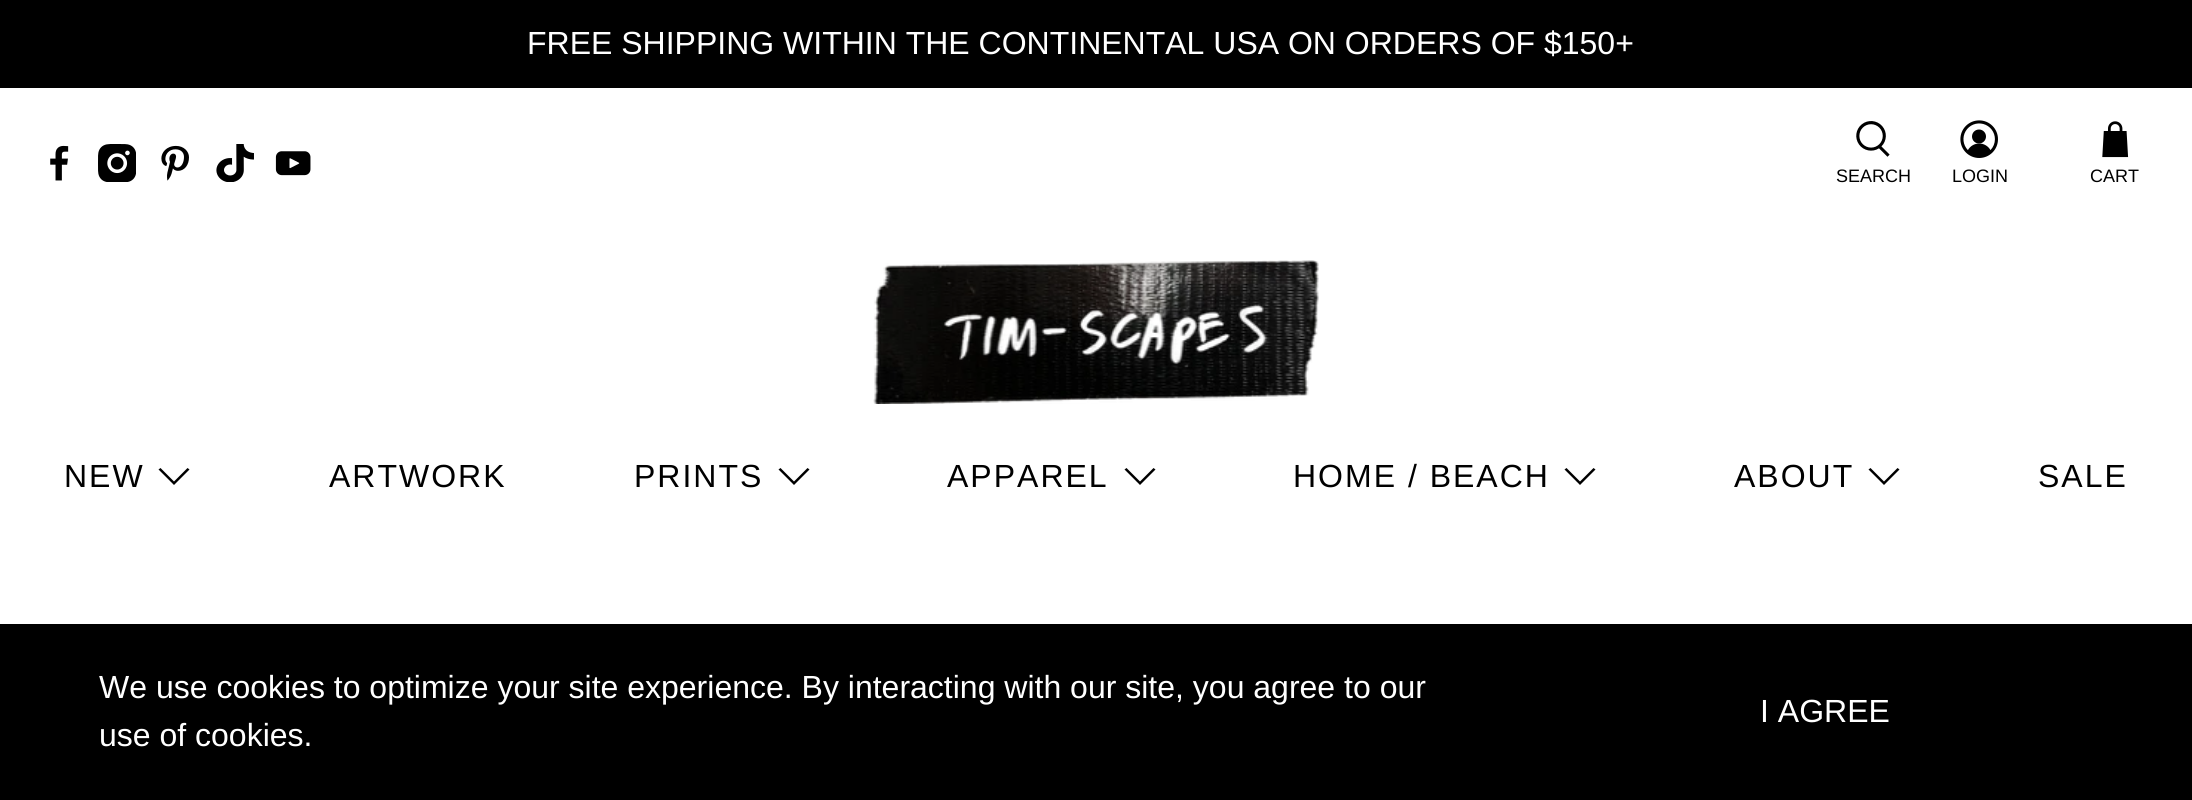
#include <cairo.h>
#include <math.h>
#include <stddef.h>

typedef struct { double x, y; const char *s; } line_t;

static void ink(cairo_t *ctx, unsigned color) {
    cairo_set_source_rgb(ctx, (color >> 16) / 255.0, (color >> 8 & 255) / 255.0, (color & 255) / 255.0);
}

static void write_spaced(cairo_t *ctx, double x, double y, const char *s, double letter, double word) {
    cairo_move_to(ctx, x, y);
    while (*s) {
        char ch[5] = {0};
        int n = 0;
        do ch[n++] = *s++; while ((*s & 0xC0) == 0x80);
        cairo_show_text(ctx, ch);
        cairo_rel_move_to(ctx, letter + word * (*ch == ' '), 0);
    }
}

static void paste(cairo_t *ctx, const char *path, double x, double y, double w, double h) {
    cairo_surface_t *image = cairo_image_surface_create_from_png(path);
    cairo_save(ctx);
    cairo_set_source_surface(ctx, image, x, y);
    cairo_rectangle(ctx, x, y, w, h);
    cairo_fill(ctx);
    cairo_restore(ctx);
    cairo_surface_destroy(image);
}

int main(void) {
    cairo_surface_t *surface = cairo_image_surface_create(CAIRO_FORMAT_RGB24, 2192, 800);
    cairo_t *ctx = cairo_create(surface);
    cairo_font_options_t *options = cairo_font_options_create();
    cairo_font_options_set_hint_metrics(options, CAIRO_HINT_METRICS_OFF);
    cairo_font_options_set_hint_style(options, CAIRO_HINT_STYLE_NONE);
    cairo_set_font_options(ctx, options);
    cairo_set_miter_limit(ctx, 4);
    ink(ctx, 0xFFFFFF);
    cairo_paint(ctx);
    ink(ctx, 0x000000);
    cairo_rectangle(ctx, 0, 0, 2192, 88);
    cairo_fill(ctx);
    cairo_select_font_face(ctx, "Liberation Sans", CAIRO_FONT_SLANT_NORMAL, CAIRO_FONT_WEIGHT_NORMAL);
    cairo_set_font_size(ctx, 32);
    ink(ctx, 0xFFFFFF);
    cairo_move_to(ctx, 527, 54);
    cairo_show_text(ctx, "FREE SHIPPING WITHIN THE CONTINENTAL USA ON ORDERS OF $150+");
    paste(ctx, "media/1.png", 50, 145, 19, 36);
    paste(ctx, "media/2.png", 98, 144, 38, 38);
    paste(ctx, "media/3.png", 161, 145, 28, 36);
    paste(ctx, "media/4.png", 216, 144, 38, 38);
    paste(ctx, "media/5.png", 275, 151, 36, 25);
    paste(ctx, "media/6.png", 1856, 121, 34, 36);
    cairo_set_font_size(ctx, 18);
    ink(ctx, 0x000000);
    cairo_move_to(ctx, 1836, 182);
    cairo_show_text(ctx, "SEARCH");
    paste(ctx, "media/7.png", 1960, 120, 38, 38);
    cairo_move_to(ctx, 1952, 182);
    cairo_show_text(ctx, "LOGIN");
    paste(ctx, "media/8.png", 2102, 121, 27, 37);
    cairo_move_to(ctx, 2090, 182);
    cairo_show_text(ctx, "CART");
    paste(ctx, "media/9.png", 873, 260, 446, 144);
    cairo_set_font_size(ctx, 32);
    write_spaced(ctx, 64, 487, "NEW", 2, 0);
    cairo_new_path(ctx);
    cairo_move_to(ctx, 174, 485);
    cairo_line_to(ctx, 158.5, 469.5);
    cairo_line_to(ctx, 160.5, 468);
    cairo_line_to(ctx, 174, 481.5);
    cairo_line_to(ctx, 187.5, 468);
    cairo_line_to(ctx, 189.5, 469.5);
    cairo_close_path(ctx);
    cairo_fill(ctx);
    write_spaced(ctx, 329, 487, "ARTWORK", 2, 0);
    write_spaced(ctx, 634, 487, "PRINTS", 2, 0);
    cairo_new_path(ctx);
    cairo_move_to(ctx, 794, 485);
    cairo_line_to(ctx, 778.5, 469.5);
    cairo_line_to(ctx, 780.5, 468);
    cairo_line_to(ctx, 794, 481.5);
    cairo_line_to(ctx, 807.5, 468);
    cairo_line_to(ctx, 809.5, 469.5);
    cairo_close_path(ctx);
    cairo_fill(ctx);
    write_spaced(ctx, 947, 487, "APPAREL", 2, 0);
    cairo_new_path(ctx);
    cairo_move_to(ctx, 1140, 485);
    cairo_line_to(ctx, 1124.5, 469.5);
    cairo_line_to(ctx, 1126.5, 468);
    cairo_line_to(ctx, 1140, 481.5);
    cairo_line_to(ctx, 1153.5, 468);
    cairo_line_to(ctx, 1155.5, 469.5);
    cairo_close_path(ctx);
    cairo_fill(ctx);
    write_spaced(ctx, 1293, 487, "HOME / BEACH", 2, 0);
    cairo_new_path(ctx);
    cairo_move_to(ctx, 1580, 485);
    cairo_line_to(ctx, 1564.5, 469.5);
    cairo_line_to(ctx, 1566.5, 468);
    cairo_line_to(ctx, 1580, 481.5);
    cairo_line_to(ctx, 1593.5, 468);
    cairo_line_to(ctx, 1595.5, 469.5);
    cairo_close_path(ctx);
    cairo_fill(ctx);
    write_spaced(ctx, 1734, 487, "ABOUT", 2, 0);
    cairo_new_path(ctx);
    cairo_move_to(ctx, 1884, 485);
    cairo_line_to(ctx, 1868.5, 469.5);
    cairo_line_to(ctx, 1870.5, 468);
    cairo_line_to(ctx, 1884, 481.5);
    cairo_line_to(ctx, 1897.5, 468);
    cairo_line_to(ctx, 1899.5, 469.5);
    cairo_close_path(ctx);
    cairo_fill(ctx);
    write_spaced(ctx, 2038, 487, "SALE", 2, 0);
    cairo_rectangle(ctx, 0, 624, 2192, 176);
    cairo_fill(ctx);
    ink(ctx, 0xFFFFFF);
    {
        static const line_t items[] = {
            {99, 698, "We use cookies to optimize your site experience. By interacting with our site, you agree to our"},
            {99, 746, "use of cookies."},
            {1760, 722, "I AGREE"},
        };
        for (size_t i = 0; i < sizeof items / sizeof *items; i++) {
            cairo_move_to(ctx, items[i].x, items[i].y);
            cairo_show_text(ctx, items[i].s);
        }
    }
    cairo_surface_write_to_png(surface, "image.png");
    cairo_font_options_destroy(options);
    cairo_destroy(ctx);
    cairo_surface_destroy(surface);
    return 0;
}
